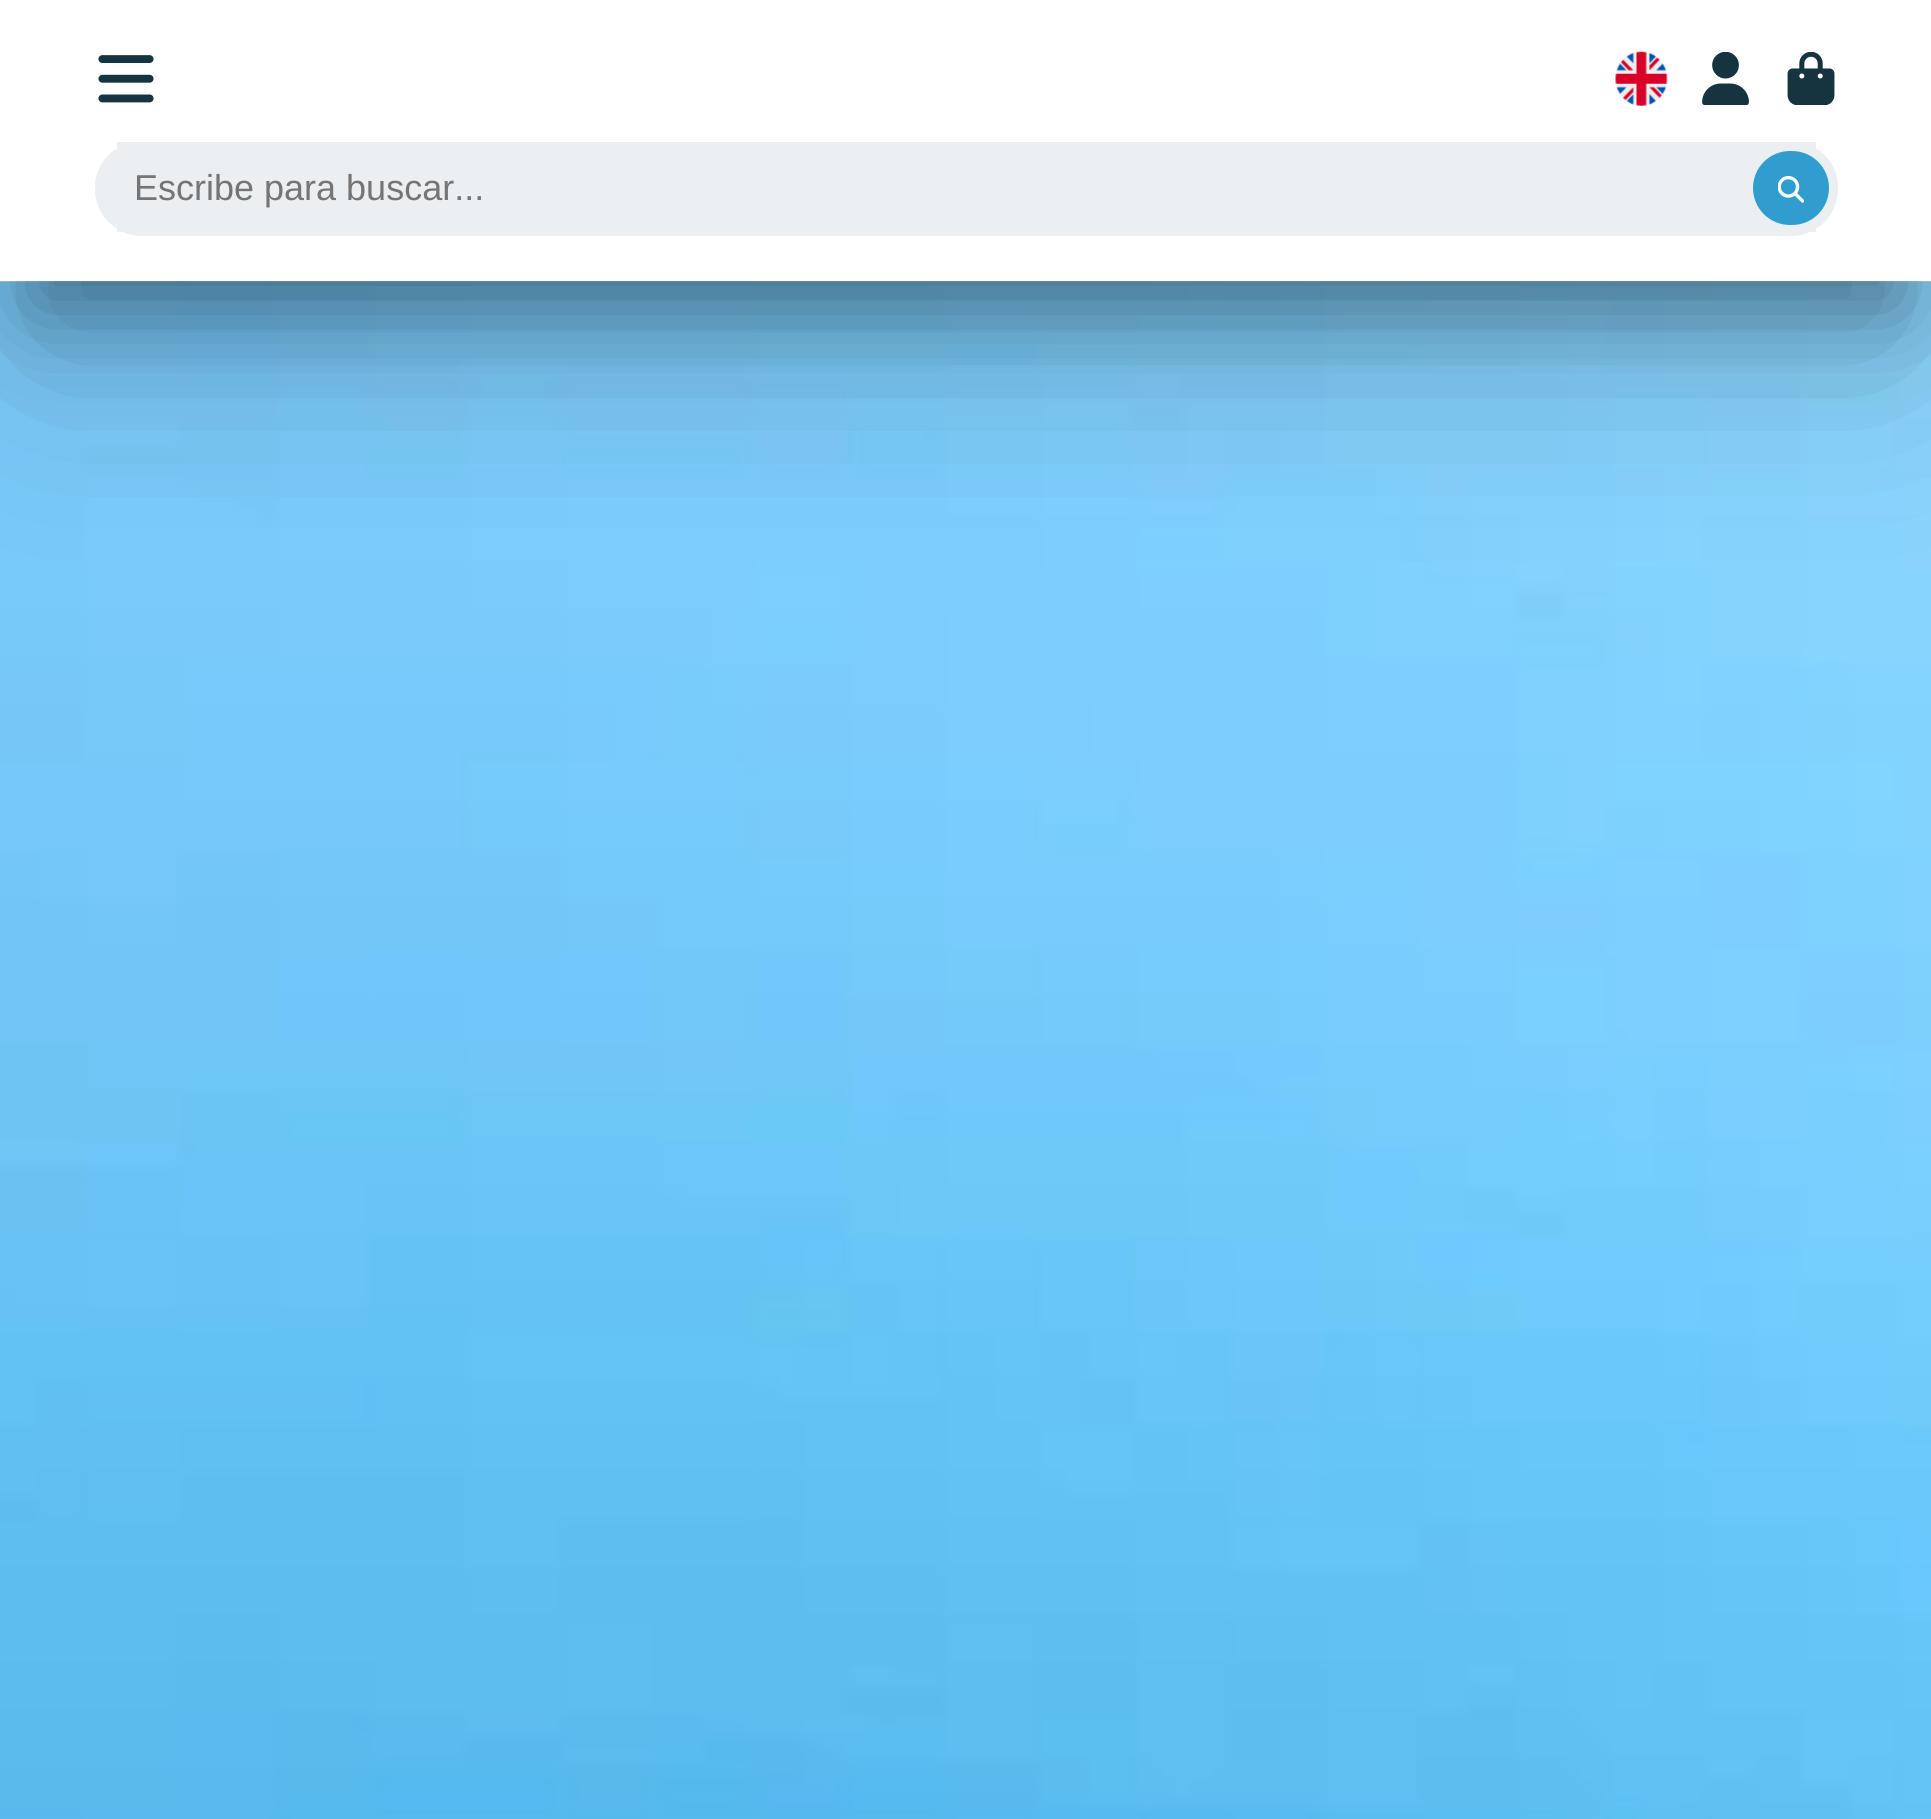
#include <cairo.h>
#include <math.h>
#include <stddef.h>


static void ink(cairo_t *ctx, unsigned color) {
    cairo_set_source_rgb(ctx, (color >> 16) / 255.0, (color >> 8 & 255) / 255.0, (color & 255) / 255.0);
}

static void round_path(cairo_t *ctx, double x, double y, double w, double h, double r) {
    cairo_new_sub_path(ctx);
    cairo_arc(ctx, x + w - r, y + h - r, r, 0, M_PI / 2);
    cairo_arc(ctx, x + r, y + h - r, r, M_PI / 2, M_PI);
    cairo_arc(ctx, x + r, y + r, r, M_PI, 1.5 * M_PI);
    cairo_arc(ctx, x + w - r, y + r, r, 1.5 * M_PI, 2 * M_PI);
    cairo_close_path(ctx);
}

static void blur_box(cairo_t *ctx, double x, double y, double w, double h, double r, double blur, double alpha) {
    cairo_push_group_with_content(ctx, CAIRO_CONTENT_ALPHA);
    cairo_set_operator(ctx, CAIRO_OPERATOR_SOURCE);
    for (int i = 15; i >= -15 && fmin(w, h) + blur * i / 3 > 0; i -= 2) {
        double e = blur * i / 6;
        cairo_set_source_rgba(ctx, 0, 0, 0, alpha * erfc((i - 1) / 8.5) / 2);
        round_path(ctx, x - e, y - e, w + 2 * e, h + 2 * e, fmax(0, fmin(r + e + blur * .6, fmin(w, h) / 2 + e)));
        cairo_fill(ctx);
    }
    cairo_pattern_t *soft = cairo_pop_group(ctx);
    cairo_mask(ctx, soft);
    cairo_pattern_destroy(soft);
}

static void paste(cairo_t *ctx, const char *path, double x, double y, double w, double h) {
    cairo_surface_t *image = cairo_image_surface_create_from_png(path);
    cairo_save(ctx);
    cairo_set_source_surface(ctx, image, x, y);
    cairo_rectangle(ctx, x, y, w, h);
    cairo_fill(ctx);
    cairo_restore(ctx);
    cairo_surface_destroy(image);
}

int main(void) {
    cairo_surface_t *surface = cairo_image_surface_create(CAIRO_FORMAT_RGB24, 1931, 1819);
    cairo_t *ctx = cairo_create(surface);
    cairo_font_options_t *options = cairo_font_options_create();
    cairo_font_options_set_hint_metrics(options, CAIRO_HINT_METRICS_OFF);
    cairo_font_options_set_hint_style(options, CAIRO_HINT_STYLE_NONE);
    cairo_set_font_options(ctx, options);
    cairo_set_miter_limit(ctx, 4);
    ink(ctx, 0xEBEFF1);
    cairo_paint(ctx);
    paste(ctx, "media/6.png", 0, 281, 1931, 1538);
    ink(ctx, 0x0F242D);
    blur_box(ctx, 32, 90, 1869, 218, 0, 43.5, 0.4);
    blur_box(ctx, 32, 131, 1869, 218, 0, 98.5, 0.3);
    ink(ctx, 0xFFFFFF);
    cairo_rectangle(ctx, 0, 0, 1931, 281);
    cairo_fill(ctx);
    paste(ctx, "media/1.png", 98, 55, 56, 48);
    paste(ctx, "media/2.png", 1615, 51, 53, 55);
    paste(ctx, "media/3.png", 1702, 52, 47, 53);
    paste(ctx, "media/4.png", 1787, 52, 48, 53);
    ink(ctx, 0xEBEFF1);
    round_path(ctx, 95, 142, 1743, 90, 45);
    cairo_fill(ctx);
    cairo_rectangle(ctx, 117, 142, 1699, 90);
    cairo_fill(ctx);
    round_path(ctx, 95, 142, 1743, 94, 47);
    cairo_fill(ctx);
    cairo_select_font_face(ctx, "Liberation Sans", CAIRO_FONT_SLANT_NORMAL, CAIRO_FONT_WEIGHT_NORMAL);
    cairo_set_font_size(ctx, 36);
    ink(ctx, 0x757575);
    cairo_move_to(ctx, 134, 200);
    cairo_show_text(ctx, "Escribe para buscar...");
    ink(ctx, 0x2F9ECF);
    round_path(ctx, 1753, 151, 76, 74, 37);
    cairo_fill(ctx);
    paste(ctx, "media/5.png", 1778, 176, 26, 27);
    cairo_surface_write_to_png(surface, "image.png");
    cairo_font_options_destroy(options);
    cairo_destroy(ctx);
    cairo_surface_destroy(surface);
    return 0;
}
